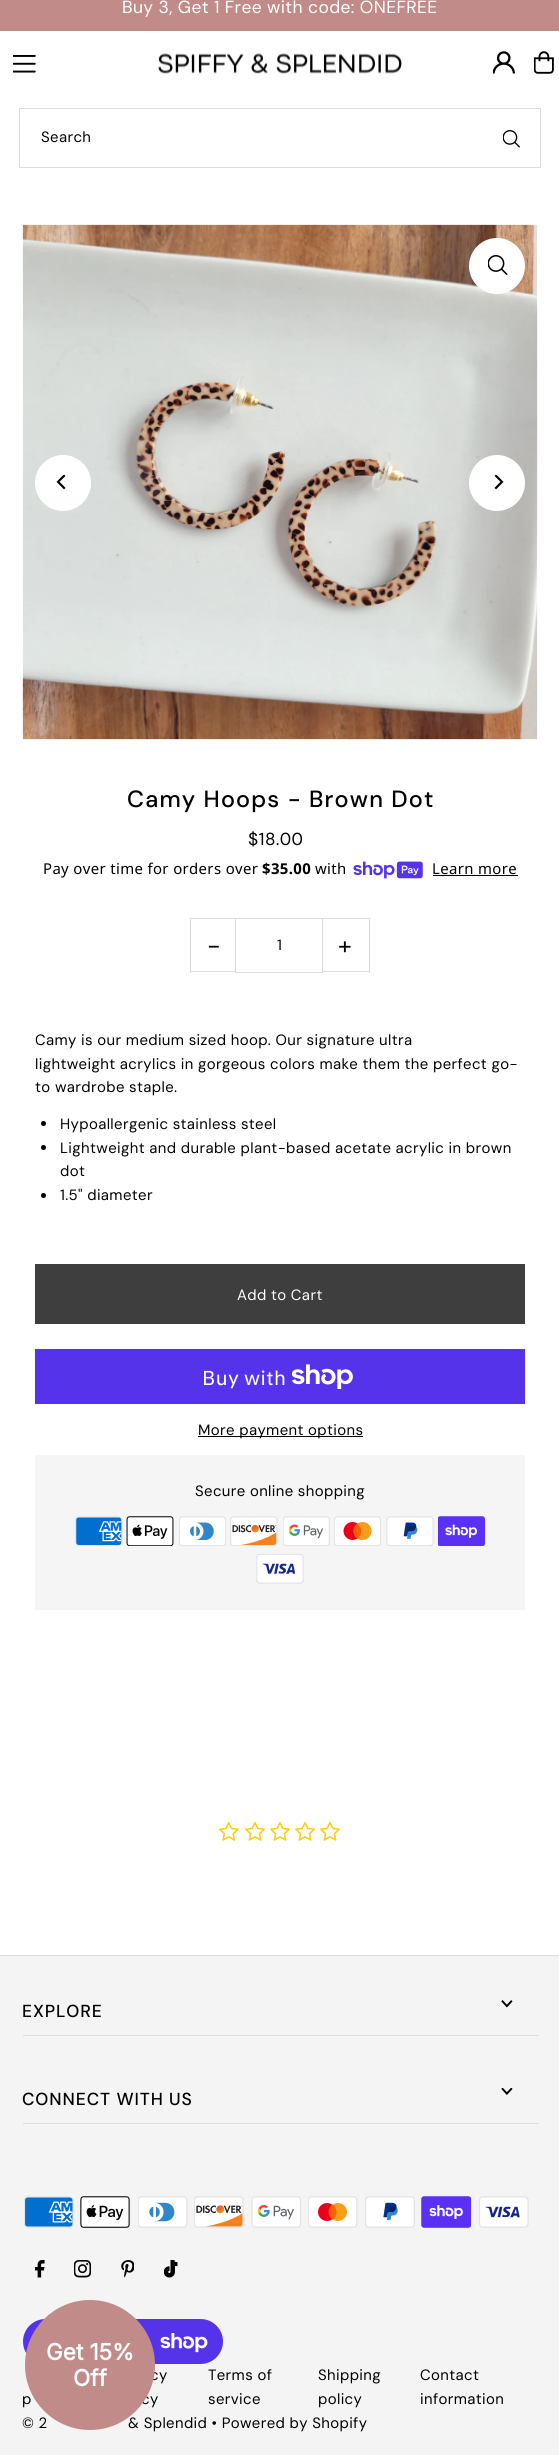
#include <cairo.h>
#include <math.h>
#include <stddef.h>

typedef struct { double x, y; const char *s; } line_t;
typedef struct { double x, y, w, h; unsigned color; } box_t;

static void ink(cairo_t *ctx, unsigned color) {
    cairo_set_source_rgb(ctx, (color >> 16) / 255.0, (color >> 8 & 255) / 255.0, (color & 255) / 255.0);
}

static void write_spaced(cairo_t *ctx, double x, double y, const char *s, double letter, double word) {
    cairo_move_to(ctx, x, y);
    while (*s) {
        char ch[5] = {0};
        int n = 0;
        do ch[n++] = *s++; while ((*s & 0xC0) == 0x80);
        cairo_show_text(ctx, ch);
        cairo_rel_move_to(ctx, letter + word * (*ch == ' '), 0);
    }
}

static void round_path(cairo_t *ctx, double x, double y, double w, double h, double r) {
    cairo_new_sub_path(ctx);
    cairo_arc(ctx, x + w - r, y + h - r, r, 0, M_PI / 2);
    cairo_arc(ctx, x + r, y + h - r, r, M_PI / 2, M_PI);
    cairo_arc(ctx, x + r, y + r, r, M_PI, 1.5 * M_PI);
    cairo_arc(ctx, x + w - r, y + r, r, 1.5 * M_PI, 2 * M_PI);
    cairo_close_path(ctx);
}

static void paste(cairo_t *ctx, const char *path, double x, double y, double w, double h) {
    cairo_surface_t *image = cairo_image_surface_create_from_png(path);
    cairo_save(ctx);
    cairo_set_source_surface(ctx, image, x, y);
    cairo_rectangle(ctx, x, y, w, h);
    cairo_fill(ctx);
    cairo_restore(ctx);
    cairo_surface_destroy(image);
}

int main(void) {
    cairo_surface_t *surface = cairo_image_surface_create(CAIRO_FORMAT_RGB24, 559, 2455);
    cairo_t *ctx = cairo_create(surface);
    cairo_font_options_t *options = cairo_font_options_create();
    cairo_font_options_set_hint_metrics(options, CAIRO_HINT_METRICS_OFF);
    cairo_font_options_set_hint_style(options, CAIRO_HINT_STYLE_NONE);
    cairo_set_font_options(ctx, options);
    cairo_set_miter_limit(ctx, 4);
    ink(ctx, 0xFFFFFF);
    cairo_paint(ctx);
    ink(ctx, 0xC08B89);
    cairo_rectangle(ctx, 0, 0, 559, 31);
    cairo_fill(ctx);
    cairo_select_font_face(ctx, "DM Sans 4", CAIRO_FONT_SLANT_NORMAL, CAIRO_FONT_WEIGHT_NORMAL);
    cairo_set_font_size(ctx, 17.5);
    ink(ctx, 0xFFFFFF);
    write_spaced(ctx, 122, 13, "Buy 3, Get 1 Free with code: ONEFREE", 0.37, 0);
    paste(ctx, "media/1.png", 13, 55, 23, 18);
    paste(ctx, "media/2.png", 158, 53, 244, 21);
    paste(ctx, "media/3.png", 493, 51, 22, 23);
    paste(ctx, "media/4.png", 534, 51, 20, 23);
    cairo_rectangle(ctx, 19.5, 108.5, 521, 59);
    ink(ctx, 0xDCDCDC);
    cairo_set_line_width(ctx, 1);
    cairo_stroke(ctx);
    cairo_select_font_face(ctx, "DM Sans", CAIRO_FONT_SLANT_NORMAL, CAIRO_FONT_WEIGHT_NORMAL);
    cairo_set_font_size(ctx, 14.9);
    ink(ctx, 0x000000);
    write_spaced(ctx, 41, 142, "Search", 0.37, 0);
    paste(ctx, "media/5.png", 503, 130, 17, 18);
    paste(ctx, "media/6.png", 22, 224, 516, 516);
    ink(ctx, 0xFFFFFF);
    cairo_arc(ctx, 497, 266, 28, 0, 2 * M_PI);
    cairo_fill(ctx);
    paste(ctx, "media/7.png", 488, 255, 20, 20);
    cairo_arc(ctx, 63, 483, 28, 0, 2 * M_PI);
    cairo_fill(ctx);
    paste(ctx, "media/8.png", 56, 475, 10, 15);
    cairo_arc(ctx, 497, 483, 28, 0, 2 * M_PI);
    cairo_fill(ctx);
    paste(ctx, "media/9.png", 494, 475, 10, 15);
    cairo_select_font_face(ctx, "DM Sans Medium", CAIRO_FONT_SLANT_NORMAL, CAIRO_FONT_WEIGHT_NORMAL);
    cairo_set_font_size(ctx, 23.4);
    ink(ctx, 0x000000);
    write_spaced(ctx, 127, 807, "Camy Hoops - Brown Dot", 1.2, 0);
    cairo_select_font_face(ctx, "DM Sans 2", CAIRO_FONT_SLANT_NORMAL, CAIRO_FONT_WEIGHT_NORMAL);
    cairo_set_font_size(ctx, 17.4);
    write_spaced(ctx, 248, 845, "$18.00", 0.37, 0);
    cairo_select_font_face(ctx, "Noto Sans", CAIRO_FONT_SLANT_NORMAL, CAIRO_FONT_WEIGHT_NORMAL);
    cairo_set_font_size(ctx, 14.9);
    write_spaced(ctx, 43, 874, "Pay over time for orders over", 0.37, 0);
    cairo_select_font_face(ctx, "Noto Sans", CAIRO_FONT_SLANT_NORMAL, CAIRO_FONT_WEIGHT_BOLD);
    write_spaced(ctx, 262, 874, "$35.00", 0.37, 0);
    cairo_select_font_face(ctx, "Noto Sans", CAIRO_FONT_SLANT_NORMAL, CAIRO_FONT_WEIGHT_NORMAL);
    write_spaced(ctx, 315, 874, "with", 0.37, 0);
    paste(ctx, "media/10.png", 353, 861, 70, 18);
    write_spaced(ctx, 432, 874, "Learn more", 0.37, 0);
    {
        static const box_t items[] = {
            {433, 875, 85, 1, 0x000000},
            {190, 918, 48, 1, 0xDCDCDC},
            {190, 971, 48, 1, 0xDCDCDC},
            {190, 918, 1, 55, 0xDCDCDC},
        };
        for (size_t i = 0; i < sizeof items / sizeof *items; i++) {
            ink(ctx, items[i].color);
            cairo_rectangle(ctx, items[i].x, items[i].y, items[i].w, items[i].h);
            cairo_fill(ctx);
        }
    }
    cairo_select_font_face(ctx, "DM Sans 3", CAIRO_FONT_SLANT_NORMAL, CAIRO_FONT_WEIGHT_NORMAL);
    cairo_set_font_size(ctx, 25);
    ink(ctx, 0x000000);
    write_spaced(ctx, 207, 954, "-", 1, 0);
    ink(ctx, 0xFFFFFF);
    cairo_rectangle(ctx, 236, 971, 2, 1);
    cairo_fill(ctx);
    cairo_rectangle(ctx, 235.5, 918.5, 87, 54);
    ink(ctx, 0xDCDCDC);
    cairo_stroke(ctx);
    cairo_select_font_face(ctx, "DM Sans", CAIRO_FONT_SLANT_NORMAL, CAIRO_FONT_WEIGHT_NORMAL);
    cairo_set_font_size(ctx, 14.9);
    ink(ctx, 0x000000);
    write_spaced(ctx, 277, 950, "1", 0.37, 0);
    {
        static const box_t items[] = {
            {323, 918, 47, 1, 0xDCDCDC},
            {369, 918, 1, 55, 0xDCDCDC},
            {323, 971, 47, 1, 0xDCDCDC},
        };
        for (size_t i = 0; i < sizeof items / sizeof *items; i++) {
            ink(ctx, items[i].color);
            cairo_rectangle(ctx, items[i].x, items[i].y, items[i].w, items[i].h);
            cairo_fill(ctx);
        }
    }
    cairo_select_font_face(ctx, "DM Sans 2", CAIRO_FONT_SLANT_NORMAL, CAIRO_FONT_WEIGHT_NORMAL);
    cairo_set_font_size(ctx, 25);
    ink(ctx, 0x000000);
    write_spaced(ctx, 338, 954, "+", 1, 0);
    cairo_select_font_face(ctx, "DM Sans", CAIRO_FONT_SLANT_NORMAL, CAIRO_FONT_WEIGHT_NORMAL);
    cairo_set_font_size(ctx, 14.9);
    {
        static const line_t items[] = {
            {35, 1045, "Camy is our medium sized hoop. Our signature ultra"},
            {35, 1069, "lightweight acrylics in gorgeous colors make them the perfect go-"},
            {35, 1092, "to wardrobe staple."},
        };
        for (size_t i = 0; i < sizeof items / sizeof *items; i++) {
            write_spaced(ctx, items[i].x, items[i].y, items[i].s, 0.37, 0);
        }
    }
    cairo_new_path(ctx);
    cairo_arc(ctx, 43.5, 1123.5, 2.5, 0, 2 * M_PI);
    cairo_fill(ctx);
    write_spaced(ctx, 60, 1129, "Hypoallergenic stainless steel", 0.37, 0);
    cairo_new_path(ctx);
    cairo_arc(ctx, 43.5, 1147.5, 2.5, 0, 2 * M_PI);
    cairo_fill(ctx);
    write_spaced(ctx, 60, 1153, "Lightweight and durable plant-based acetate acrylic in brown", 0.37, 0);
    write_spaced(ctx, 60, 1176, "dot", 0.37, 0);
    cairo_new_path(ctx);
    cairo_arc(ctx, 43.5, 1195.5, 2.5, 0, 2 * M_PI);
    cairo_fill(ctx);
    write_spaced(ctx, 60, 1200, "1.5\" diameter", 0.37, 0);
    ink(ctx, 0x3E3E3E);
    cairo_rectangle(ctx, 35, 1264, 490, 60);
    cairo_fill(ctx);
    ink(ctx, 0xFFFFFF);
    write_spaced(ctx, 237, 1300, "Add to Cart", 0.37, 0);
    ink(ctx, 0x5433EB);
    cairo_rectangle(ctx, 35, 1349, 490, 55);
    cairo_fill(ctx);
    cairo_select_font_face(ctx, "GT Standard", CAIRO_FONT_SLANT_NORMAL, CAIRO_FONT_WEIGHT_NORMAL);
    cairo_set_font_size(ctx, 20);
    ink(ctx, 0xFFFFFF);
    write_spaced(ctx, 202, 1385, "Buy with", 0.37, 0);
    paste(ctx, "media/11.png", 291, 1364, 62, 25);
    ink(ctx, 0x000000);
    cairo_rectangle(ctx, 198, 1436, 165, 1);
    cairo_fill(ctx);
    cairo_select_font_face(ctx, "DM Sans", CAIRO_FONT_SLANT_NORMAL, CAIRO_FONT_WEIGHT_NORMAL);
    cairo_set_font_size(ctx, 14.9);
    write_spaced(ctx, 198, 1435, "More payment options", 0.37, 0);
    ink(ctx, 0xF5F5F5);
    cairo_rectangle(ctx, 35, 1455, 490, 155);
    cairo_fill(ctx);
    ink(ctx, 0x000000);
    write_spaced(ctx, 195, 1496, "Secure online shopping", 0.37, 0);
    paste(ctx, "media/12.png", 75, 1516, 48, 30);
    paste(ctx, "media/13.png", 126, 1516, 48, 30);
    paste(ctx, "media/14.png", 179, 1516, 47, 30);
    paste(ctx, "media/15.png", 230, 1516, 48, 30);
    paste(ctx, "media/16.png", 283, 1516, 47, 30);
    paste(ctx, "media/17.png", 334, 1516, 47, 30);
    paste(ctx, "media/18.png", 386, 1516, 48, 30);
    paste(ctx, "media/19.png", 438, 1516, 47, 30);
    paste(ctx, "media/20.png", 256, 1554, 48, 30);
    paste(ctx, "media/21.png", 218, 1821, 21, 20);
    paste(ctx, "media/22.png", 245, 1821, 20, 20);
    paste(ctx, "media/22.png", 270, 1821, 20, 20);
    paste(ctx, "media/22.png", 295, 1821, 20, 20);
    paste(ctx, "media/22.png", 320, 1821, 20, 20);
    {
        static const box_t items[] = {
            {0, 1956, 559, 499, 0xF5F4F4},
            {0, 1955, 559, 1, 0xDCDCDC},
            {23, 2035, 515, 1, 0xDCDCDC},
        };
        for (size_t i = 0; i < sizeof items / sizeof *items; i++) {
            ink(ctx, items[i].color);
            cairo_rectangle(ctx, items[i].x, items[i].y, items[i].w, items[i].h);
            cairo_fill(ctx);
        }
    }
    cairo_select_font_face(ctx, "DM Sans 2 Medium", CAIRO_FONT_SLANT_NORMAL, CAIRO_FONT_WEIGHT_NORMAL);
    cairo_set_font_size(ctx, 17.4);
    ink(ctx, 0x000000);
    write_spaced(ctx, 22, 2017, "EXPLORE", 0.9, 0);
    paste(ctx, "media/23.png", 501, 2000, 12, 8);
    ink(ctx, 0xDCDCDC);
    cairo_rectangle(ctx, 23, 2123, 515, 1);
    cairo_fill(ctx);
    ink(ctx, 0x000000);
    write_spaced(ctx, 22, 2105, "CONNECT WITH US", 0.9, 0);
    paste(ctx, "media/24.png", 501, 2088, 12, 7);
    paste(ctx, "media/25.png", 24, 2196, 50, 32);
    paste(ctx, "media/26.png", 80, 2196, 50, 32);
    paste(ctx, "media/27.png", 138, 2196, 50, 32);
    paste(ctx, "media/28.png", 194, 2196, 50, 32);
    paste(ctx, "media/29.png", 251, 2196, 50, 32);
    paste(ctx, "media/30.png", 308, 2196, 50, 32);
    paste(ctx, "media/31.png", 365, 2196, 50, 32);
    paste(ctx, "media/32.png", 421, 2196, 50, 32);
    paste(ctx, "media/33.png", 479, 2196, 50, 32);
    paste(ctx, "media/34.png", 35, 2260, 10, 18);
    paste(ctx, "media/35.png", 74, 2260, 17, 18);
    paste(ctx, "media/36.png", 121, 2260, 13, 18);
    paste(ctx, "media/37.png", 164, 2260, 14, 18);
    ink(ctx, 0x5433EB);
    round_path(ctx, 23, 2319, 200, 45, 22.5);
    cairo_fill(ctx);
    paste(ctx, "media/38.png", 160, 2333, 48, 20);
    cairo_select_font_face(ctx, "DM Sans", CAIRO_FONT_SLANT_NORMAL, CAIRO_FONT_WEIGHT_NORMAL);
    cairo_set_font_size(ctx, 14.9);
    ink(ctx, 0x000000);
    {
        static const line_t items[] = {
            {22, 2404, "p"},
            {150, 2380, "cy"},
            {141, 2404, "cy"},
            {208, 2380, "Terms of"},
            {208, 2404, "service"},
            {318, 2380, "Shipping"},
            {318, 2404, "policy"},
            {420, 2380, "Contact"},
            {420, 2404, "information"},
            {22, 2428, "© 2"},
            {128, 2428, "& Splendid • Powered by Shopify"},
        };
        for (size_t i = 0; i < sizeof items / sizeof *items; i++) {
            write_spaced(ctx, items[i].x, items[i].y, items[i].s, 0.37, 0);
        }
    }
    ink(ctx, 0xC08B89);
    cairo_new_path(ctx);
    cairo_arc(ctx, 90, 2365, 65, 0, 2 * M_PI);
    cairo_fill(ctx);
    cairo_select_font_face(ctx, "Inter", CAIRO_FONT_SLANT_NORMAL, CAIRO_FONT_WEIGHT_BOLD);
    cairo_set_font_size(ctx, 22.5);
    ink(ctx, 0xFFFFFF);
    cairo_move_to(ctx, 46, 2360);
    cairo_show_text(ctx, "Get 15%");
    cairo_move_to(ctx, 73, 2386);
    cairo_show_text(ctx, "Off");
    cairo_surface_write_to_png(surface, "image.png");
    cairo_font_options_destroy(options);
    cairo_destroy(ctx);
    cairo_surface_destroy(surface);
    return 0;
}
